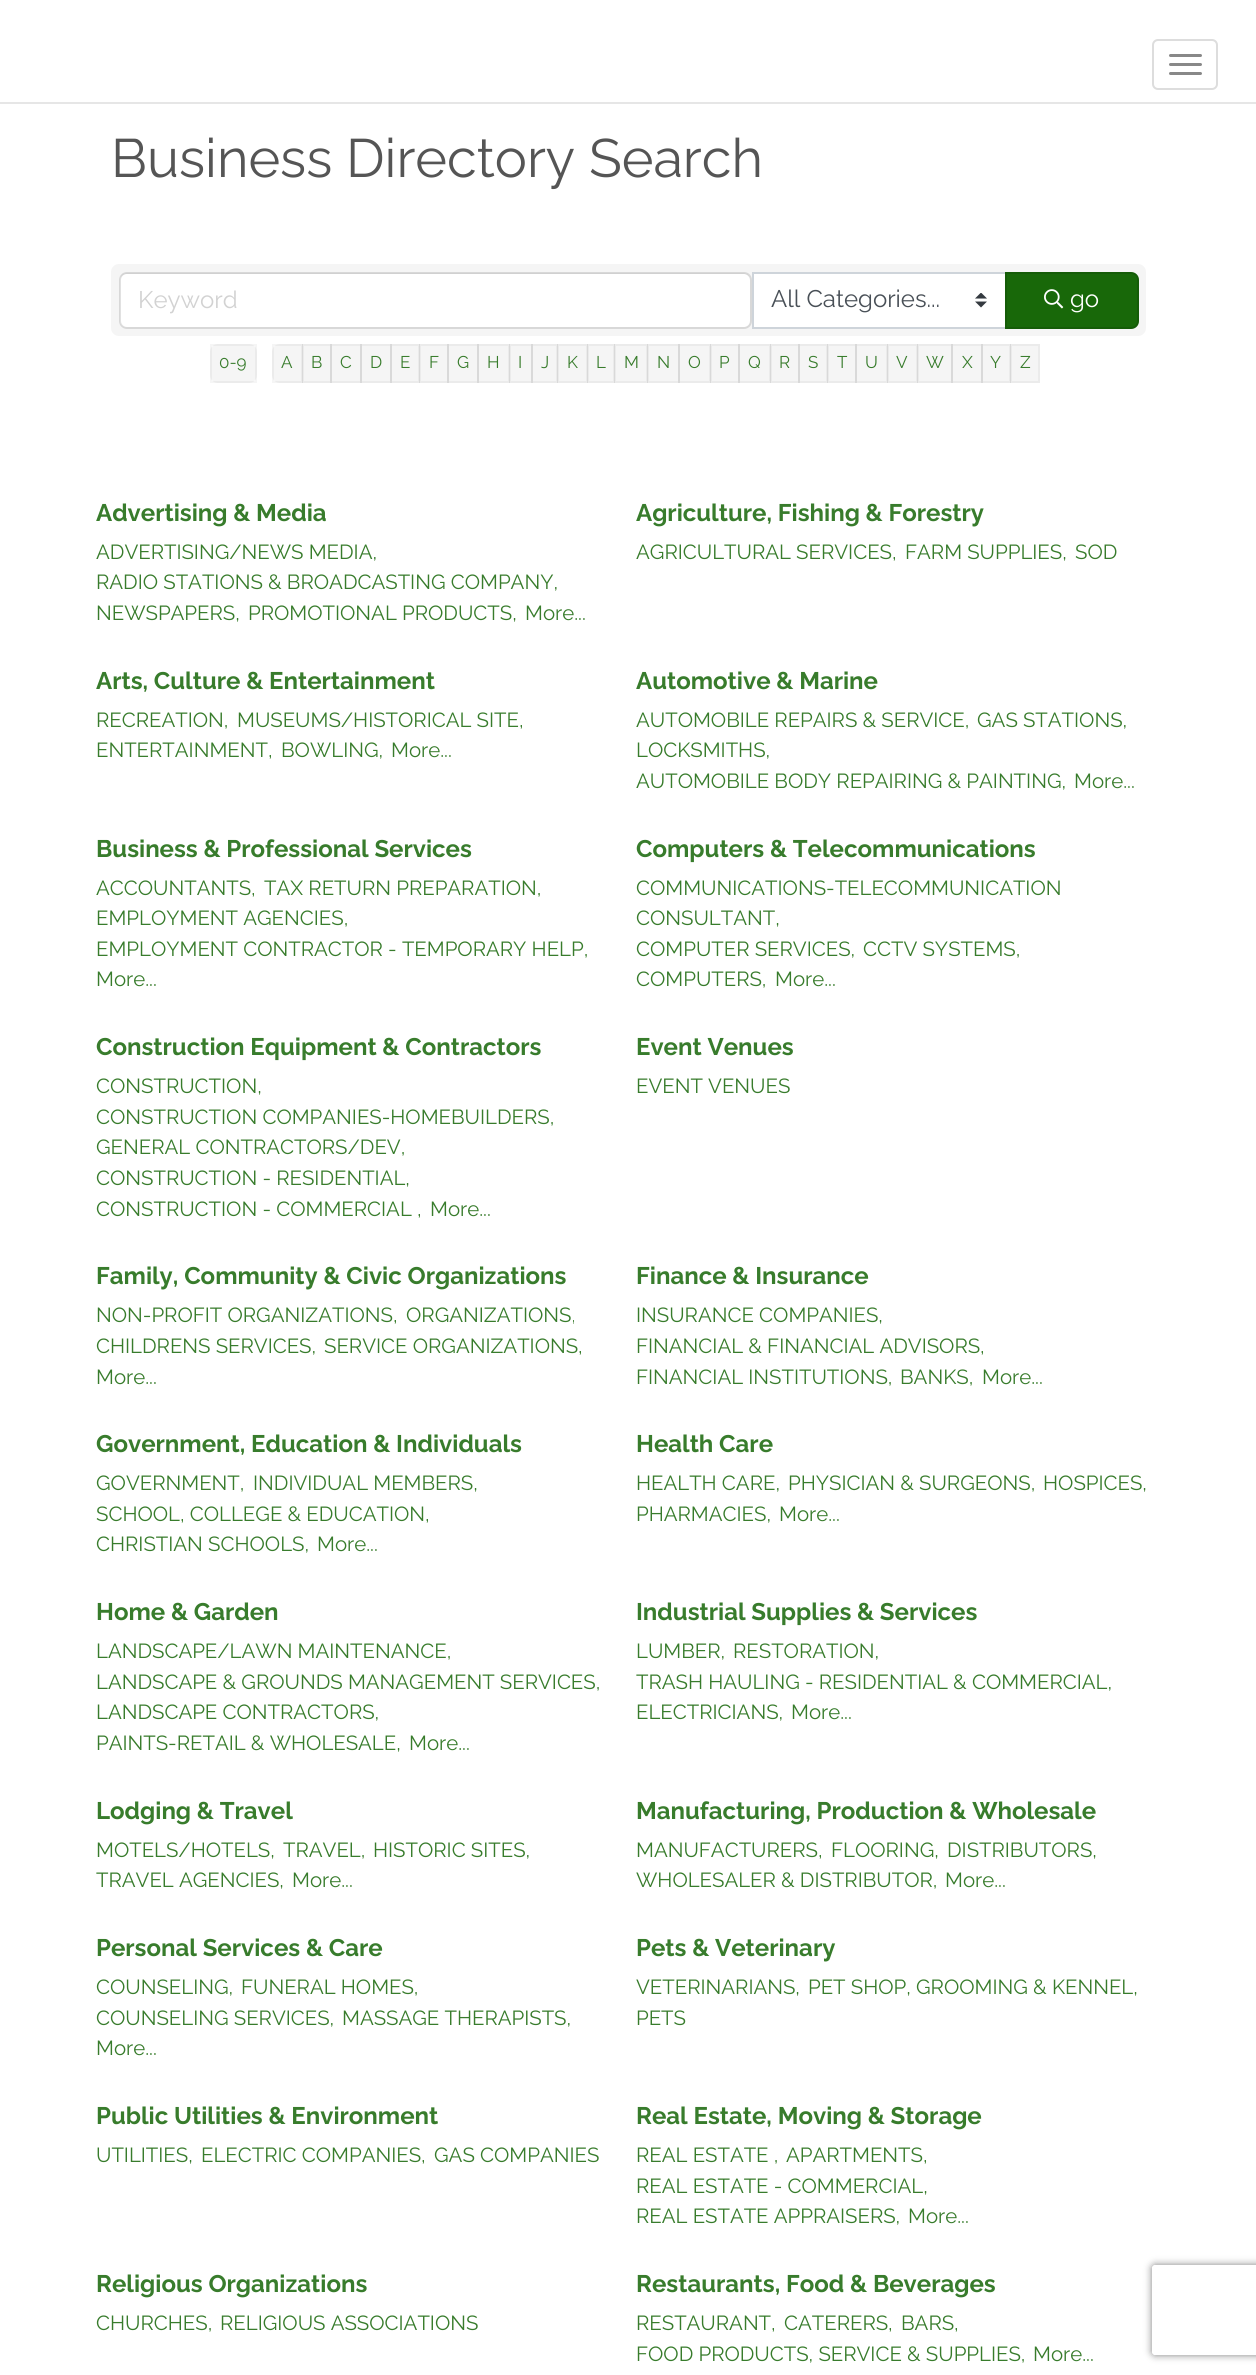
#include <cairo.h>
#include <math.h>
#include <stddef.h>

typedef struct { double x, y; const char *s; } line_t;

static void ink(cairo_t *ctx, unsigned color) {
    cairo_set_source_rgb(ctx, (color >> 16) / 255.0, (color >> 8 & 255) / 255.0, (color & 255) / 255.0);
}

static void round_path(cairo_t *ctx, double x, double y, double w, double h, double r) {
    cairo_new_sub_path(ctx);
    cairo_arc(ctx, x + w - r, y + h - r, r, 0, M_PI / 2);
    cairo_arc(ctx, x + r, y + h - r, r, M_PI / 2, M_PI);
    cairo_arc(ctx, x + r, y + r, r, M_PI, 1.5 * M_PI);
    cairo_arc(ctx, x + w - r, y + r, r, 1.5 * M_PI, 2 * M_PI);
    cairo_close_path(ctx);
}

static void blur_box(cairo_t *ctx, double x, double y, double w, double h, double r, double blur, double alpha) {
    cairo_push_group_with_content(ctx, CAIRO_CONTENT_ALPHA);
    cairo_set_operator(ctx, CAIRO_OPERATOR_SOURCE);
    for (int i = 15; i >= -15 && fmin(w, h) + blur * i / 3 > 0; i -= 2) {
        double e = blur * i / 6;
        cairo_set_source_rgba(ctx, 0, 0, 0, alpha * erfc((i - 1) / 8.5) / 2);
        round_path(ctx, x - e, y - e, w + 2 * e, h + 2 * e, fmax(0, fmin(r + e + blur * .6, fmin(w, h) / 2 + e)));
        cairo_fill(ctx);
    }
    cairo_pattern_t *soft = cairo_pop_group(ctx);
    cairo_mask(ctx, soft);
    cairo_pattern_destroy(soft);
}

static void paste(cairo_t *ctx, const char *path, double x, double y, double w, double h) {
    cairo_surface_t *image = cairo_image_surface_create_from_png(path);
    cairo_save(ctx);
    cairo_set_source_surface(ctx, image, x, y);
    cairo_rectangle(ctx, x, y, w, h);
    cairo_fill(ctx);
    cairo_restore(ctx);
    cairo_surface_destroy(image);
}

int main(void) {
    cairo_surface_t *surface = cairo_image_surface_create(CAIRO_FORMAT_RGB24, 1256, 2375);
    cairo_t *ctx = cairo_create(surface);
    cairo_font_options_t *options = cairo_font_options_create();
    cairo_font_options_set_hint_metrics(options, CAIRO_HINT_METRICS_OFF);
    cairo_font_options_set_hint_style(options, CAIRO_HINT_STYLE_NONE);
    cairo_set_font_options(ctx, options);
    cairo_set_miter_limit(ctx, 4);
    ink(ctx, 0xFFFFFF);
    cairo_paint(ctx);
    ink(ctx, 0xE6E6E6);
    cairo_rectangle(ctx, 0, 102, 1256, 2);
    cairo_fill(ctx);
    round_path(ctx, 1153, 40, 64, 49, 5);
    ink(ctx, 0xDDDDDD);
    cairo_stroke(ctx);
    ink(ctx, 0x888888);
    round_path(ctx, 1169, 54, 33, 3, 1.5);
    cairo_fill(ctx);
    round_path(ctx, 1169, 63, 33, 3, 1.5);
    cairo_fill(ctx);
    round_path(ctx, 1169, 72, 33, 3, 1.5);
    cairo_fill(ctx);
    cairo_select_font_face(ctx, "Raleway", CAIRO_FONT_SLANT_NORMAL, CAIRO_FONT_WEIGHT_NORMAL);
    cairo_set_font_size(ctx, 54);
    ink(ctx, 0x555555);
    cairo_move_to(ctx, 111, 177);
    cairo_show_text(ctx, "Business Directory Search");
    ink(ctx, 0xF5F5F5);
    round_path(ctx, 111, 264, 1035, 72, 8);
    cairo_fill(ctx);
    ink(ctx, 0xFFFFFF);
    round_path(ctx, 120, 273, 630, 54, 6);
    cairo_fill(ctx);
    ink(ctx, 0xECECEC);
    cairo_new_path(ctx);
    cairo_move_to(ctx, 126, 274);
    cairo_line_to(ctx, 744, 274);
    cairo_curve_to(ctx, 747, 274, 750, 277, 750, 280);
    cairo_curve_to(ctx, 750, 276, 748, 273, 744, 273);
    cairo_line_to(ctx, 126, 273);
    cairo_curve_to(ctx, 122, 273, 120, 276, 120, 280);
    cairo_curve_to(ctx, 120, 277, 123, 274, 126, 274);
    cairo_close_path(ctx);
    cairo_fill(ctx);
    round_path(ctx, 120, 273, 631, 55, 7);
    cairo_set_source_rgba(ctx, 0, 0, 0, 0.12);
    cairo_stroke(ctx);
    cairo_set_font_size(ctx, 24);
    ink(ctx, 0xD2D2D2);
    cairo_move_to(ctx, 138, 308);
    cairo_show_text(ctx, "Keyword");
    ink(ctx, 0xFFFFFF);
    cairo_rectangle(ctx, 754, 274, 251, 53);
    cairo_fill(ctx);
    paste(ctx, "media/1.png", 975, 293, 12, 15);
    cairo_rectangle(ctx, 753, 273, 253, 55);
    ink(ctx, 0xCED4DA);
    cairo_stroke(ctx);
    ink(ctx, 0x495057);
    cairo_move_to(ctx, 771, 307);
    cairo_show_text(ctx, "All Categories...");
    ink(ctx, 0x186809);
    cairo_new_path(ctx);
    cairo_move_to(ctx, 1005, 272);
    cairo_line_to(ctx, 1131, 272);
    cairo_curve_to(ctx, 1135.5, 272, 1139, 275.5, 1139, 280);
    cairo_line_to(ctx, 1139, 321);
    cairo_curve_to(ctx, 1139, 325.5, 1135.5, 329, 1131, 329);
    cairo_line_to(ctx, 1005, 329);
    cairo_close_path(ctx);
    cairo_fill(ctx);
    cairo_new_path(ctx);
    cairo_move_to(ctx, 1006, 273);
    cairo_line_to(ctx, 1131, 273);
    cairo_curve_to(ctx, 1135, 273, 1138, 276, 1138, 280);
    cairo_line_to(ctx, 1138, 321);
    cairo_curve_to(ctx, 1138, 325, 1135, 328, 1131, 328);
    cairo_line_to(ctx, 1006, 328);
    cairo_close_path(ctx);
    cairo_set_source_rgba(ctx, 0, 0, 0, 0.12);
    cairo_stroke(ctx);
    paste(ctx, "media/2.png", 1044, 289, 20, 20);
    ink(ctx, 0xFFFFFF);
    cairo_move_to(ctx, 1070, 307);
    cairo_show_text(ctx, "go");
    ink(ctx, 0xF5F5F5);
    round_path(ctx, 210, 344, 47, 39, 8);
    cairo_fill(ctx);
    cairo_rectangle(ctx, 211, 345, 45, 37);
    cairo_set_source_rgba(ctx, 0, 0, 0, 0.04);
    cairo_stroke(ctx);
    cairo_set_font_size(ctx, 17);
    ink(ctx, 0x387C2C);
    cairo_move_to(ctx, 219, 368);
    cairo_show_text(ctx, "0-9");
    ink(ctx, 0xF5F5F5);
    cairo_new_path(ctx);
    cairo_move_to(ctx, 280, 344);
    cairo_line_to(ctx, 303, 344);
    cairo_line_to(ctx, 303, 383);
    cairo_line_to(ctx, 280, 383);
    cairo_curve_to(ctx, 275.5, 383, 272, 379.5, 272, 375);
    cairo_line_to(ctx, 272, 352);
    cairo_curve_to(ctx, 272, 347.5, 275.5, 344, 280, 344);
    cairo_close_path(ctx);
    cairo_fill(ctx);
    cairo_rectangle(ctx, 273, 345, 29, 37);
    cairo_set_source_rgba(ctx, 0, 0, 0, 0.04);
    cairo_stroke(ctx);
    ink(ctx, 0x387C2C);
    cairo_move_to(ctx, 281, 368);
    cairo_show_text(ctx, "A");
    cairo_set_source_rgba(ctx, 0, 0, 0, 0.04);
    cairo_rectangle(ctx, 302, 344, 30, 39);
    cairo_fill(ctx);
    cairo_rectangle(ctx, 303, 345, 28, 37);
    cairo_stroke(ctx);
    ink(ctx, 0x387C2C);
    cairo_move_to(ctx, 311, 368);
    cairo_show_text(ctx, "B");
    cairo_set_source_rgba(ctx, 0, 0, 0, 0.04);
    cairo_rectangle(ctx, 330, 344, 32, 39);
    cairo_fill(ctx);
    cairo_rectangle(ctx, 331, 345, 30, 37);
    cairo_stroke(ctx);
    ink(ctx, 0x387C2C);
    cairo_move_to(ctx, 340, 368);
    cairo_show_text(ctx, "C");
    cairo_set_source_rgba(ctx, 0, 0, 0, 0.04);
    cairo_rectangle(ctx, 360, 344, 32, 39);
    cairo_fill(ctx);
    cairo_rectangle(ctx, 361, 345, 30, 37);
    cairo_stroke(ctx);
    ink(ctx, 0x387C2C);
    cairo_move_to(ctx, 370, 368);
    cairo_show_text(ctx, "D");
    cairo_set_source_rgba(ctx, 0, 0, 0, 0.04);
    cairo_rectangle(ctx, 390, 344, 30, 39);
    cairo_fill(ctx);
    cairo_rectangle(ctx, 391, 345, 28, 37);
    cairo_stroke(ctx);
    ink(ctx, 0x387C2C);
    cairo_move_to(ctx, 400, 368);
    cairo_show_text(ctx, "E");
    cairo_set_source_rgba(ctx, 0, 0, 0, 0.04);
    cairo_rectangle(ctx, 419, 344, 30, 39);
    cairo_fill(ctx);
    cairo_rectangle(ctx, 420, 345, 28, 37);
    cairo_stroke(ctx);
    ink(ctx, 0x387C2C);
    cairo_move_to(ctx, 429, 368);
    cairo_show_text(ctx, "F");
    cairo_set_source_rgba(ctx, 0, 0, 0, 0.04);
    cairo_rectangle(ctx, 447, 344, 32, 39);
    cairo_fill(ctx);
    cairo_rectangle(ctx, 448, 345, 30, 37);
    cairo_stroke(ctx);
    ink(ctx, 0x387C2C);
    cairo_move_to(ctx, 457, 368);
    cairo_show_text(ctx, "G");
    cairo_set_source_rgba(ctx, 0, 0, 0, 0.04);
    cairo_rectangle(ctx, 477, 344, 33, 39);
    cairo_fill(ctx);
    cairo_rectangle(ctx, 478, 345, 31, 37);
    cairo_stroke(ctx);
    ink(ctx, 0x387C2C);
    cairo_move_to(ctx, 487, 368);
    cairo_show_text(ctx, "H");
    cairo_set_source_rgba(ctx, 0, 0, 0, 0.04);
    cairo_rectangle(ctx, 509, 344, 24, 39);
    cairo_fill(ctx);
    cairo_rectangle(ctx, 510, 345, 22, 37);
    cairo_stroke(ctx);
    ink(ctx, 0x387C2C);
    cairo_move_to(ctx, 518, 368);
    cairo_show_text(ctx, "I");
    cairo_set_source_rgba(ctx, 0, 0, 0, 0.04);
    cairo_rectangle(ctx, 531, 344, 27, 39);
    cairo_fill(ctx);
    cairo_rectangle(ctx, 532, 345, 25, 37);
    cairo_stroke(ctx);
    ink(ctx, 0x387C2C);
    cairo_move_to(ctx, 541, 368);
    cairo_show_text(ctx, "J");
    cairo_set_source_rgba(ctx, 0, 0, 0, 0.04);
    cairo_rectangle(ctx, 557, 344, 31, 39);
    cairo_fill(ctx);
    cairo_rectangle(ctx, 558, 345, 29, 37);
    cairo_stroke(ctx);
    ink(ctx, 0x387C2C);
    cairo_move_to(ctx, 567, 368);
    cairo_show_text(ctx, "K");
    cairo_set_source_rgba(ctx, 0, 0, 0, 0.04);
    cairo_rectangle(ctx, 587, 344, 28, 39);
    cairo_fill(ctx);
    cairo_rectangle(ctx, 588, 345, 26, 37);
    cairo_stroke(ctx);
    ink(ctx, 0x387C2C);
    cairo_move_to(ctx, 596, 368);
    cairo_show_text(ctx, "L");
    cairo_set_source_rgba(ctx, 0, 0, 0, 0.04);
    cairo_rectangle(ctx, 614, 344, 34, 39);
    cairo_fill(ctx);
    cairo_rectangle(ctx, 615, 345, 32, 37);
    cairo_stroke(ctx);
    ink(ctx, 0x387C2C);
    cairo_move_to(ctx, 624, 368);
    cairo_show_text(ctx, "M");
    cairo_set_source_rgba(ctx, 0, 0, 0, 0.04);
    cairo_rectangle(ctx, 647, 344, 33, 39);
    cairo_fill(ctx);
    cairo_rectangle(ctx, 648, 345, 31, 37);
    cairo_stroke(ctx);
    ink(ctx, 0x387C2C);
    cairo_move_to(ctx, 657, 368);
    cairo_show_text(ctx, "N");
    cairo_set_source_rgba(ctx, 0, 0, 0, 0.04);
    cairo_rectangle(ctx, 678, 344, 33, 39);
    cairo_fill(ctx);
    cairo_rectangle(ctx, 679, 345, 31, 37);
    cairo_stroke(ctx);
    ink(ctx, 0x387C2C);
    cairo_move_to(ctx, 688, 368);
    cairo_show_text(ctx, "O");
    cairo_set_source_rgba(ctx, 0, 0, 0, 0.04);
    cairo_rectangle(ctx, 710, 344, 30, 39);
    cairo_fill(ctx);
    cairo_rectangle(ctx, 711, 345, 28, 37);
    cairo_stroke(ctx);
    ink(ctx, 0x387C2C);
    cairo_move_to(ctx, 719, 368);
    cairo_show_text(ctx, "P");
    cairo_set_source_rgba(ctx, 0, 0, 0, 0.04);
    cairo_rectangle(ctx, 738, 344, 33, 39);
    cairo_fill(ctx);
    cairo_rectangle(ctx, 739, 345, 31, 37);
    cairo_stroke(ctx);
    ink(ctx, 0x387C2C);
    cairo_move_to(ctx, 748, 368);
    cairo_show_text(ctx, "Q");
    cairo_set_source_rgba(ctx, 0, 0, 0, 0.04);
    cairo_rectangle(ctx, 770, 344, 30, 39);
    cairo_fill(ctx);
    cairo_rectangle(ctx, 771, 345, 28, 37);
    cairo_stroke(ctx);
    ink(ctx, 0x387C2C);
    cairo_move_to(ctx, 779, 368);
    cairo_show_text(ctx, "R");
    cairo_set_source_rgba(ctx, 0, 0, 0, 0.04);
    cairo_rectangle(ctx, 798, 344, 30, 39);
    cairo_fill(ctx);
    cairo_rectangle(ctx, 799, 345, 28, 37);
    cairo_stroke(ctx);
    ink(ctx, 0x387C2C);
    cairo_move_to(ctx, 808, 368);
    cairo_show_text(ctx, "S");
    cairo_set_source_rgba(ctx, 0, 0, 0, 0.04);
    cairo_rectangle(ctx, 827, 344, 30, 39);
    cairo_fill(ctx);
    cairo_rectangle(ctx, 828, 345, 28, 37);
    cairo_stroke(ctx);
    ink(ctx, 0x387C2C);
    cairo_move_to(ctx, 837, 368);
    cairo_show_text(ctx, "T");
    cairo_set_source_rgba(ctx, 0, 0, 0, 0.04);
    cairo_rectangle(ctx, 855, 344, 33, 39);
    cairo_fill(ctx);
    cairo_rectangle(ctx, 856, 345, 31, 37);
    cairo_stroke(ctx);
    ink(ctx, 0x387C2C);
    cairo_move_to(ctx, 865, 368);
    cairo_show_text(ctx, "U");
    cairo_set_source_rgba(ctx, 0, 0, 0, 0.04);
    cairo_rectangle(ctx, 887, 344, 31, 39);
    cairo_fill(ctx);
    cairo_rectangle(ctx, 888, 345, 29, 37);
    cairo_stroke(ctx);
    ink(ctx, 0x387C2C);
    cairo_move_to(ctx, 896, 368);
    cairo_show_text(ctx, "V");
    cairo_set_source_rgba(ctx, 0, 0, 0, 0.04);
    cairo_rectangle(ctx, 917, 344, 36, 39);
    cairo_fill(ctx);
    cairo_rectangle(ctx, 918, 345, 34, 37);
    cairo_stroke(ctx);
    ink(ctx, 0x387C2C);
    cairo_move_to(ctx, 926, 368);
    cairo_show_text(ctx, "W");
    cairo_set_source_rgba(ctx, 0, 0, 0, 0.04);
    cairo_rectangle(ctx, 951, 344, 32, 39);
    cairo_fill(ctx);
    cairo_rectangle(ctx, 952, 345, 30, 37);
    cairo_stroke(ctx);
    ink(ctx, 0x387C2C);
    cairo_move_to(ctx, 962, 368);
    cairo_show_text(ctx, "X");
    cairo_set_source_rgba(ctx, 0, 0, 0, 0.04);
    cairo_rectangle(ctx, 981, 344, 30, 39);
    cairo_fill(ctx);
    cairo_rectangle(ctx, 982, 345, 28, 37);
    cairo_stroke(ctx);
    ink(ctx, 0x387C2C);
    cairo_move_to(ctx, 990, 368);
    cairo_show_text(ctx, "Y");
    cairo_set_source_rgba(ctx, 0, 0, 0, 0.04);
    cairo_rectangle(ctx, 1010, 344, 30, 39);
    cairo_fill(ctx);
    cairo_rectangle(ctx, 1011, 345, 28, 37);
    cairo_stroke(ctx);
    ink(ctx, 0x387C2C);
    cairo_move_to(ctx, 1020, 368);
    cairo_show_text(ctx, "Z");
    cairo_select_font_face(ctx, "Raleway", CAIRO_FONT_SLANT_NORMAL, CAIRO_FONT_WEIGHT_BOLD);
    cairo_set_font_size(ctx, 24);
    cairo_move_to(ctx, 96, 521);
    cairo_show_text(ctx, "Advertising & Media");
    cairo_select_font_face(ctx, "Raleway", CAIRO_FONT_SLANT_NORMAL, CAIRO_FONT_WEIGHT_NORMAL);
    cairo_set_font_size(ctx, 20.4);
    {
        static const line_t items[] = {
            {96, 559, "ADVERTISING/NEWS MEDIA,"},
            {96, 589, "RADIO STATIONS & BROADCASTING COMPANY,"},
            {96, 620, "NEWSPAPERS,"},
            {248, 620, "PROMOTIONAL PRODUCTS,"},
            {525, 620, "More..."},
        };
        for (size_t i = 0; i < sizeof items / sizeof *items; i++) {
            cairo_move_to(ctx, items[i].x, items[i].y);
            cairo_show_text(ctx, items[i].s);
        }
    }
    cairo_select_font_face(ctx, "Raleway", CAIRO_FONT_SLANT_NORMAL, CAIRO_FONT_WEIGHT_BOLD);
    cairo_set_font_size(ctx, 24);
    cairo_move_to(ctx, 636, 521);
    cairo_show_text(ctx, "Agriculture, Fishing & Forestry");
    cairo_select_font_face(ctx, "Raleway", CAIRO_FONT_SLANT_NORMAL, CAIRO_FONT_WEIGHT_NORMAL);
    cairo_set_font_size(ctx, 20.4);
    {
        static const line_t items[] = {
            {636, 559, "AGRICULTURAL SERVICES,"},
            {905, 559, "FARM SUPPLIES,"},
            {1075, 559, "SOD"},
        };
        for (size_t i = 0; i < sizeof items / sizeof *items; i++) {
            cairo_move_to(ctx, items[i].x, items[i].y);
            cairo_show_text(ctx, items[i].s);
        }
    }
    cairo_select_font_face(ctx, "Raleway", CAIRO_FONT_SLANT_NORMAL, CAIRO_FONT_WEIGHT_BOLD);
    cairo_set_font_size(ctx, 24);
    cairo_move_to(ctx, 96, 689);
    cairo_show_text(ctx, "Arts, Culture & Entertainment");
    cairo_select_font_face(ctx, "Raleway", CAIRO_FONT_SLANT_NORMAL, CAIRO_FONT_WEIGHT_NORMAL);
    cairo_set_font_size(ctx, 20.4);
    {
        static const line_t items[] = {
            {96, 727, "RECREATION,"},
            {237, 727, "MUSEUMS/HISTORICAL SITE,"},
            {96, 757, "ENTERTAINMENT,"},
            {281, 757, "BOWLING,"},
            {391, 757, "More..."},
        };
        for (size_t i = 0; i < sizeof items / sizeof *items; i++) {
            cairo_move_to(ctx, items[i].x, items[i].y);
            cairo_show_text(ctx, items[i].s);
        }
    }
    cairo_select_font_face(ctx, "Raleway", CAIRO_FONT_SLANT_NORMAL, CAIRO_FONT_WEIGHT_BOLD);
    cairo_set_font_size(ctx, 24);
    cairo_move_to(ctx, 636, 689);
    cairo_show_text(ctx, "Automotive & Marine");
    cairo_select_font_face(ctx, "Raleway", CAIRO_FONT_SLANT_NORMAL, CAIRO_FONT_WEIGHT_NORMAL);
    cairo_set_font_size(ctx, 20.4);
    {
        static const line_t items[] = {
            {636, 727, "AUTOMOBILE REPAIRS & SERVICE,"},
            {977, 727, "GAS STATIONS,"},
            {636, 757, "LOCKSMITHS,"},
            {636, 788, "AUTOMOBILE BODY REPAIRING & PAINTING,"},
            {1074, 788, "More..."},
        };
        for (size_t i = 0; i < sizeof items / sizeof *items; i++) {
            cairo_move_to(ctx, items[i].x, items[i].y);
            cairo_show_text(ctx, items[i].s);
        }
    }
    cairo_select_font_face(ctx, "Raleway", CAIRO_FONT_SLANT_NORMAL, CAIRO_FONT_WEIGHT_BOLD);
    cairo_set_font_size(ctx, 24);
    cairo_move_to(ctx, 96, 857);
    cairo_show_text(ctx, "Business & Professional Services");
    cairo_select_font_face(ctx, "Raleway", CAIRO_FONT_SLANT_NORMAL, CAIRO_FONT_WEIGHT_NORMAL);
    cairo_set_font_size(ctx, 20.4);
    {
        static const line_t items[] = {
            {96, 895, "ACCOUNTANTS,"},
            {264, 895, "TAX RETURN PREPARATION,"},
            {96, 925, "EMPLOYMENT AGENCIES,"},
            {96, 956, "EMPLOYMENT CONTRACTOR - TEMPORARY HELP,"},
            {96, 986, "More..."},
        };
        for (size_t i = 0; i < sizeof items / sizeof *items; i++) {
            cairo_move_to(ctx, items[i].x, items[i].y);
            cairo_show_text(ctx, items[i].s);
        }
    }
    cairo_select_font_face(ctx, "Raleway", CAIRO_FONT_SLANT_NORMAL, CAIRO_FONT_WEIGHT_BOLD);
    cairo_set_font_size(ctx, 24);
    cairo_move_to(ctx, 636, 857);
    cairo_show_text(ctx, "Computers & Telecommunications");
    cairo_select_font_face(ctx, "Raleway", CAIRO_FONT_SLANT_NORMAL, CAIRO_FONT_WEIGHT_NORMAL);
    cairo_set_font_size(ctx, 20.4);
    {
        static const line_t items[] = {
            {636, 895, "COMMUNICATIONS-TELECOMMUNICATION"},
            {636, 925, "CONSULTANT,"},
            {636, 956, "COMPUTER SERVICES,"},
            {863, 956, "CCTV SYSTEMS,"},
            {636, 986, "COMPUTERS,"},
            {775, 986, "More..."},
        };
        for (size_t i = 0; i < sizeof items / sizeof *items; i++) {
            cairo_move_to(ctx, items[i].x, items[i].y);
            cairo_show_text(ctx, items[i].s);
        }
    }
    cairo_select_font_face(ctx, "Raleway", CAIRO_FONT_SLANT_NORMAL, CAIRO_FONT_WEIGHT_BOLD);
    cairo_set_font_size(ctx, 24);
    cairo_move_to(ctx, 96, 1055);
    cairo_show_text(ctx, "Construction Equipment & Contractors");
    cairo_select_font_face(ctx, "Raleway", CAIRO_FONT_SLANT_NORMAL, CAIRO_FONT_WEIGHT_NORMAL);
    cairo_set_font_size(ctx, 20.4);
    {
        static const line_t items[] = {
            {96, 1093, "CONSTRUCTION,"},
            {96, 1124, "CONSTRUCTION COMPANIES-HOMEBUILDERS,"},
            {96, 1154, "GENERAL CONTRACTORS/DEV,"},
            {96, 1185, "CONSTRUCTION - RESIDENTIAL,"},
            {96, 1216, "CONSTRUCTION - COMMERCIAL ,"},
            {430, 1216, "More..."},
        };
        for (size_t i = 0; i < sizeof items / sizeof *items; i++) {
            cairo_move_to(ctx, items[i].x, items[i].y);
            cairo_show_text(ctx, items[i].s);
        }
    }
    cairo_select_font_face(ctx, "Raleway", CAIRO_FONT_SLANT_NORMAL, CAIRO_FONT_WEIGHT_BOLD);
    cairo_set_font_size(ctx, 24);
    cairo_move_to(ctx, 636, 1055);
    cairo_show_text(ctx, "Event Venues");
    cairo_select_font_face(ctx, "Raleway", CAIRO_FONT_SLANT_NORMAL, CAIRO_FONT_WEIGHT_NORMAL);
    cairo_set_font_size(ctx, 20.4);
    cairo_move_to(ctx, 636, 1093);
    cairo_show_text(ctx, "EVENT VENUES");
    cairo_select_font_face(ctx, "Raleway", CAIRO_FONT_SLANT_NORMAL, CAIRO_FONT_WEIGHT_BOLD);
    cairo_set_font_size(ctx, 24);
    cairo_move_to(ctx, 96, 1284);
    cairo_show_text(ctx, "Family, Community & Civic Organizations");
    cairo_select_font_face(ctx, "Raleway", CAIRO_FONT_SLANT_NORMAL, CAIRO_FONT_WEIGHT_NORMAL);
    cairo_set_font_size(ctx, 20.4);
    {
        static const line_t items[] = {
            {96, 1322, "NON-PROFIT ORGANIZATIONS,"},
            {406, 1322, "ORGANIZATIONS,"},
            {96, 1353, "CHILDRENS SERVICES,"},
            {324, 1353, "SERVICE ORGANIZATIONS,"},
            {96, 1384, "More..."},
        };
        for (size_t i = 0; i < sizeof items / sizeof *items; i++) {
            cairo_move_to(ctx, items[i].x, items[i].y);
            cairo_show_text(ctx, items[i].s);
        }
    }
    cairo_select_font_face(ctx, "Raleway", CAIRO_FONT_SLANT_NORMAL, CAIRO_FONT_WEIGHT_BOLD);
    cairo_set_font_size(ctx, 24);
    cairo_move_to(ctx, 636, 1284);
    cairo_show_text(ctx, "Finance & Insurance");
    cairo_select_font_face(ctx, "Raleway", CAIRO_FONT_SLANT_NORMAL, CAIRO_FONT_WEIGHT_NORMAL);
    cairo_set_font_size(ctx, 20.4);
    {
        static const line_t items[] = {
            {636, 1322, "INSURANCE COMPANIES,"},
            {636, 1353, "FINANCIAL & FINANCIAL ADVISORS,"},
            {636, 1384, "FINANCIAL INSTITUTIONS,"},
            {900, 1384, "BANKS,"},
            {982, 1384, "More..."},
        };
        for (size_t i = 0; i < sizeof items / sizeof *items; i++) {
            cairo_move_to(ctx, items[i].x, items[i].y);
            cairo_show_text(ctx, items[i].s);
        }
    }
    cairo_select_font_face(ctx, "Raleway", CAIRO_FONT_SLANT_NORMAL, CAIRO_FONT_WEIGHT_BOLD);
    cairo_set_font_size(ctx, 24);
    cairo_move_to(ctx, 96, 1452);
    cairo_show_text(ctx, "Government, Education & Individuals");
    cairo_select_font_face(ctx, "Raleway", CAIRO_FONT_SLANT_NORMAL, CAIRO_FONT_WEIGHT_NORMAL);
    cairo_set_font_size(ctx, 20.4);
    {
        static const line_t items[] = {
            {96, 1490, "GOVERNMENT,"},
            {253, 1490, "INDIVIDUAL MEMBERS,"},
            {96, 1521, "SCHOOL, COLLEGE & EDUCATION,"},
            {96, 1551, "CHRISTIAN SCHOOLS,"},
            {317, 1551, "More..."},
        };
        for (size_t i = 0; i < sizeof items / sizeof *items; i++) {
            cairo_move_to(ctx, items[i].x, items[i].y);
            cairo_show_text(ctx, items[i].s);
        }
    }
    cairo_select_font_face(ctx, "Raleway", CAIRO_FONT_SLANT_NORMAL, CAIRO_FONT_WEIGHT_BOLD);
    cairo_set_font_size(ctx, 24);
    cairo_move_to(ctx, 636, 1452);
    cairo_show_text(ctx, "Health Care");
    cairo_select_font_face(ctx, "Raleway", CAIRO_FONT_SLANT_NORMAL, CAIRO_FONT_WEIGHT_NORMAL);
    cairo_set_font_size(ctx, 20.4);
    {
        static const line_t items[] = {
            {636, 1490, "HEALTH CARE,"},
            {788, 1490, "PHYSICIAN & SURGEONS,"},
            {1043, 1490, "HOSPICES,"},
            {636, 1521, "PHARMACIES,"},
            {779, 1521, "More..."},
        };
        for (size_t i = 0; i < sizeof items / sizeof *items; i++) {
            cairo_move_to(ctx, items[i].x, items[i].y);
            cairo_show_text(ctx, items[i].s);
        }
    }
    cairo_select_font_face(ctx, "Raleway", CAIRO_FONT_SLANT_NORMAL, CAIRO_FONT_WEIGHT_BOLD);
    cairo_set_font_size(ctx, 24);
    cairo_move_to(ctx, 96, 1620);
    cairo_show_text(ctx, "Home & Garden");
    cairo_select_font_face(ctx, "Raleway", CAIRO_FONT_SLANT_NORMAL, CAIRO_FONT_WEIGHT_NORMAL);
    cairo_set_font_size(ctx, 20.4);
    {
        static const line_t items[] = {
            {96, 1658, "LANDSCAPE/LAWN MAINTENANCE,"},
            {96, 1689, "LANDSCAPE & GROUNDS MANAGEMENT SERVICES,"},
            {96, 1719, "LANDSCAPE CONTRACTORS,"},
            {96, 1750, "PAINTS-RETAIL & WHOLESALE,"},
            {409, 1750, "More..."},
        };
        for (size_t i = 0; i < sizeof items / sizeof *items; i++) {
            cairo_move_to(ctx, items[i].x, items[i].y);
            cairo_show_text(ctx, items[i].s);
        }
    }
    cairo_select_font_face(ctx, "Raleway", CAIRO_FONT_SLANT_NORMAL, CAIRO_FONT_WEIGHT_BOLD);
    cairo_set_font_size(ctx, 24);
    cairo_move_to(ctx, 636, 1620);
    cairo_show_text(ctx, "Industrial Supplies & Services");
    cairo_select_font_face(ctx, "Raleway", CAIRO_FONT_SLANT_NORMAL, CAIRO_FONT_WEIGHT_NORMAL);
    cairo_set_font_size(ctx, 20.4);
    {
        static const line_t items[] = {
            {636, 1658, "LUMBER,"},
            {733, 1658, "RESTORATION,"},
            {636, 1689, "TRASH HAULING - RESIDENTIAL & COMMERCIAL,"},
            {636, 1719, "ELECTRICIANS,"},
            {791, 1719, "More..."},
        };
        for (size_t i = 0; i < sizeof items / sizeof *items; i++) {
            cairo_move_to(ctx, items[i].x, items[i].y);
            cairo_show_text(ctx, items[i].s);
        }
    }
    cairo_select_font_face(ctx, "Raleway", CAIRO_FONT_SLANT_NORMAL, CAIRO_FONT_WEIGHT_BOLD);
    cairo_set_font_size(ctx, 24);
    cairo_move_to(ctx, 96, 1819);
    cairo_show_text(ctx, "Lodging & Travel");
    cairo_select_font_face(ctx, "Raleway", CAIRO_FONT_SLANT_NORMAL, CAIRO_FONT_WEIGHT_NORMAL);
    cairo_set_font_size(ctx, 20.4);
    {
        static const line_t items[] = {
            {96, 1857, "MOTELS/HOTELS,"},
            {283, 1857, "TRAVEL,"},
            {373, 1857, "HISTORIC SITES,"},
            {96, 1887, "TRAVEL AGENCIES,"},
            {292, 1887, "More..."},
        };
        for (size_t i = 0; i < sizeof items / sizeof *items; i++) {
            cairo_move_to(ctx, items[i].x, items[i].y);
            cairo_show_text(ctx, items[i].s);
        }
    }
    cairo_select_font_face(ctx, "Raleway", CAIRO_FONT_SLANT_NORMAL, CAIRO_FONT_WEIGHT_BOLD);
    cairo_set_font_size(ctx, 24);
    cairo_move_to(ctx, 636, 1819);
    cairo_show_text(ctx, "Manufacturing, Production & Wholesale");
    cairo_select_font_face(ctx, "Raleway", CAIRO_FONT_SLANT_NORMAL, CAIRO_FONT_WEIGHT_NORMAL);
    cairo_set_font_size(ctx, 20.4);
    {
        static const line_t items[] = {
            {636, 1857, "MANUFACTURERS,"},
            {831, 1857, "FLOORING,"},
            {947, 1857, "DISTRIBUTORS,"},
            {636, 1887, "WHOLESALER & DISTRIBUTOR,"},
            {945, 1887, "More..."},
        };
        for (size_t i = 0; i < sizeof items / sizeof *items; i++) {
            cairo_move_to(ctx, items[i].x, items[i].y);
            cairo_show_text(ctx, items[i].s);
        }
    }
    cairo_select_font_face(ctx, "Raleway", CAIRO_FONT_SLANT_NORMAL, CAIRO_FONT_WEIGHT_BOLD);
    cairo_set_font_size(ctx, 24);
    cairo_move_to(ctx, 96, 1956);
    cairo_show_text(ctx, "Personal Services & Care");
    cairo_select_font_face(ctx, "Raleway", CAIRO_FONT_SLANT_NORMAL, CAIRO_FONT_WEIGHT_NORMAL);
    cairo_set_font_size(ctx, 20.4);
    {
        static const line_t items[] = {
            {96, 1994, "COUNSELING,"},
            {241, 1994, "FUNERAL HOMES,"},
            {96, 2025, "COUNSELING SERVICES,"},
            {342, 2025, "MASSAGE THERAPISTS,"},
            {96, 2055, "More..."},
        };
        for (size_t i = 0; i < sizeof items / sizeof *items; i++) {
            cairo_move_to(ctx, items[i].x, items[i].y);
            cairo_show_text(ctx, items[i].s);
        }
    }
    cairo_select_font_face(ctx, "Raleway", CAIRO_FONT_SLANT_NORMAL, CAIRO_FONT_WEIGHT_BOLD);
    cairo_set_font_size(ctx, 24);
    cairo_move_to(ctx, 636, 1956);
    cairo_show_text(ctx, "Pets & Veterinary");
    cairo_select_font_face(ctx, "Raleway", CAIRO_FONT_SLANT_NORMAL, CAIRO_FONT_WEIGHT_NORMAL);
    cairo_set_font_size(ctx, 20.4);
    {
        static const line_t items[] = {
            {636, 1994, "VETERINARIANS,"},
            {808, 1994, "PET SHOP, GROOMING & KENNEL,"},
            {636, 2025, "PETS"},
        };
        for (size_t i = 0; i < sizeof items / sizeof *items; i++) {
            cairo_move_to(ctx, items[i].x, items[i].y);
            cairo_show_text(ctx, items[i].s);
        }
    }
    cairo_select_font_face(ctx, "Raleway", CAIRO_FONT_SLANT_NORMAL, CAIRO_FONT_WEIGHT_BOLD);
    cairo_set_font_size(ctx, 24);
    cairo_move_to(ctx, 96, 2124);
    cairo_show_text(ctx, "Public Utilities & Environment");
    cairo_select_font_face(ctx, "Raleway", CAIRO_FONT_SLANT_NORMAL, CAIRO_FONT_WEIGHT_NORMAL);
    cairo_set_font_size(ctx, 20.4);
    {
        static const line_t items[] = {
            {96, 2162, "UTILITIES,"},
            {201, 2162, "ELECTRIC COMPANIES,"},
            {434, 2162, "GAS COMPANIES"},
        };
        for (size_t i = 0; i < sizeof items / sizeof *items; i++) {
            cairo_move_to(ctx, items[i].x, items[i].y);
            cairo_show_text(ctx, items[i].s);
        }
    }
    cairo_select_font_face(ctx, "Raleway", CAIRO_FONT_SLANT_NORMAL, CAIRO_FONT_WEIGHT_BOLD);
    cairo_set_font_size(ctx, 24);
    cairo_move_to(ctx, 636, 2124);
    cairo_show_text(ctx, "Real Estate, Moving & Storage");
    cairo_select_font_face(ctx, "Raleway", CAIRO_FONT_SLANT_NORMAL, CAIRO_FONT_WEIGHT_NORMAL);
    cairo_set_font_size(ctx, 20.4);
    {
        static const line_t items[] = {
            {636, 2162, "REAL ESTATE ,"},
            {786, 2162, "APARTMENTS,"},
            {636, 2193, "REAL ESTATE - COMMERCIAL,"},
            {636, 2223, "REAL ESTATE APPRAISERS,"},
            {908, 2223, "More..."},
        };
        for (size_t i = 0; i < sizeof items / sizeof *items; i++) {
            cairo_move_to(ctx, items[i].x, items[i].y);
            cairo_show_text(ctx, items[i].s);
        }
    }
    cairo_select_font_face(ctx, "Raleway", CAIRO_FONT_SLANT_NORMAL, CAIRO_FONT_WEIGHT_BOLD);
    cairo_set_font_size(ctx, 24);
    cairo_move_to(ctx, 96, 2292);
    cairo_show_text(ctx, "Religious Organizations");
    cairo_select_font_face(ctx, "Raleway", CAIRO_FONT_SLANT_NORMAL, CAIRO_FONT_WEIGHT_NORMAL);
    cairo_set_font_size(ctx, 20.4);
    cairo_move_to(ctx, 96, 2330);
    cairo_show_text(ctx, "CHURCHES,");
    cairo_move_to(ctx, 220, 2330);
    cairo_show_text(ctx, "RELIGIOUS ASSOCIATIONS");
    cairo_select_font_face(ctx, "Raleway", CAIRO_FONT_SLANT_NORMAL, CAIRO_FONT_WEIGHT_BOLD);
    cairo_set_font_size(ctx, 24);
    cairo_move_to(ctx, 636, 2292);
    cairo_show_text(ctx, "Restaurants, Food & Beverages");
    cairo_select_font_face(ctx, "Raleway", CAIRO_FONT_SLANT_NORMAL, CAIRO_FONT_WEIGHT_NORMAL);
    cairo_set_font_size(ctx, 20.4);
    {
        static const line_t items[] = {
            {636, 2330, "RESTAURANT,"},
            {784, 2330, "CATERERS,"},
            {901, 2330, "BARS,"},
            {636, 2361, "FOOD PRODUCTS, SERVICE & SUPPLIES,"},
            {1033, 2361, "More..."},
        };
        for (size_t i = 0; i < sizeof items / sizeof *items; i++) {
            cairo_move_to(ctx, items[i].x, items[i].y);
            cairo_show_text(ctx, items[i].s);
        }
    }
    cairo_save(ctx);
    cairo_set_fill_rule(ctx, CAIRO_FILL_RULE_EVEN_ODD);
    cairo_new_path(ctx);
    cairo_move_to(ctx, 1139, 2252);
    cairo_line_to(ctx, 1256, 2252);
    cairo_line_to(ctx, 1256, 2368);
    cairo_line_to(ctx, 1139, 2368);
    cairo_close_path(ctx);
    cairo_move_to(ctx, 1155, 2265);
    cairo_line_to(ctx, 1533, 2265);
    cairo_curve_to(ctx, 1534.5, 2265, 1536, 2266.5, 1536, 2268);
    cairo_line_to(ctx, 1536, 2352);
    cairo_curve_to(ctx, 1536, 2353.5, 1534.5, 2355, 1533, 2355);
    cairo_line_to(ctx, 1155, 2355);
    cairo_curve_to(ctx, 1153.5, 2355, 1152, 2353.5, 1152, 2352);
    cairo_line_to(ctx, 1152, 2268);
    cairo_curve_to(ctx, 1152, 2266.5, 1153.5, 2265, 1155, 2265);
    cairo_close_path(ctx);
    cairo_clip(ctx);
    ink(ctx, 0x808080);
    blur_box(ctx, 1152, 2265, 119, 90, 3, 4, 1);
    cairo_restore(ctx);
    cairo_surface_write_to_png(surface, "image.png");
    cairo_font_options_destroy(options);
    cairo_destroy(ctx);
    cairo_surface_destroy(surface);
    return 0;
}
